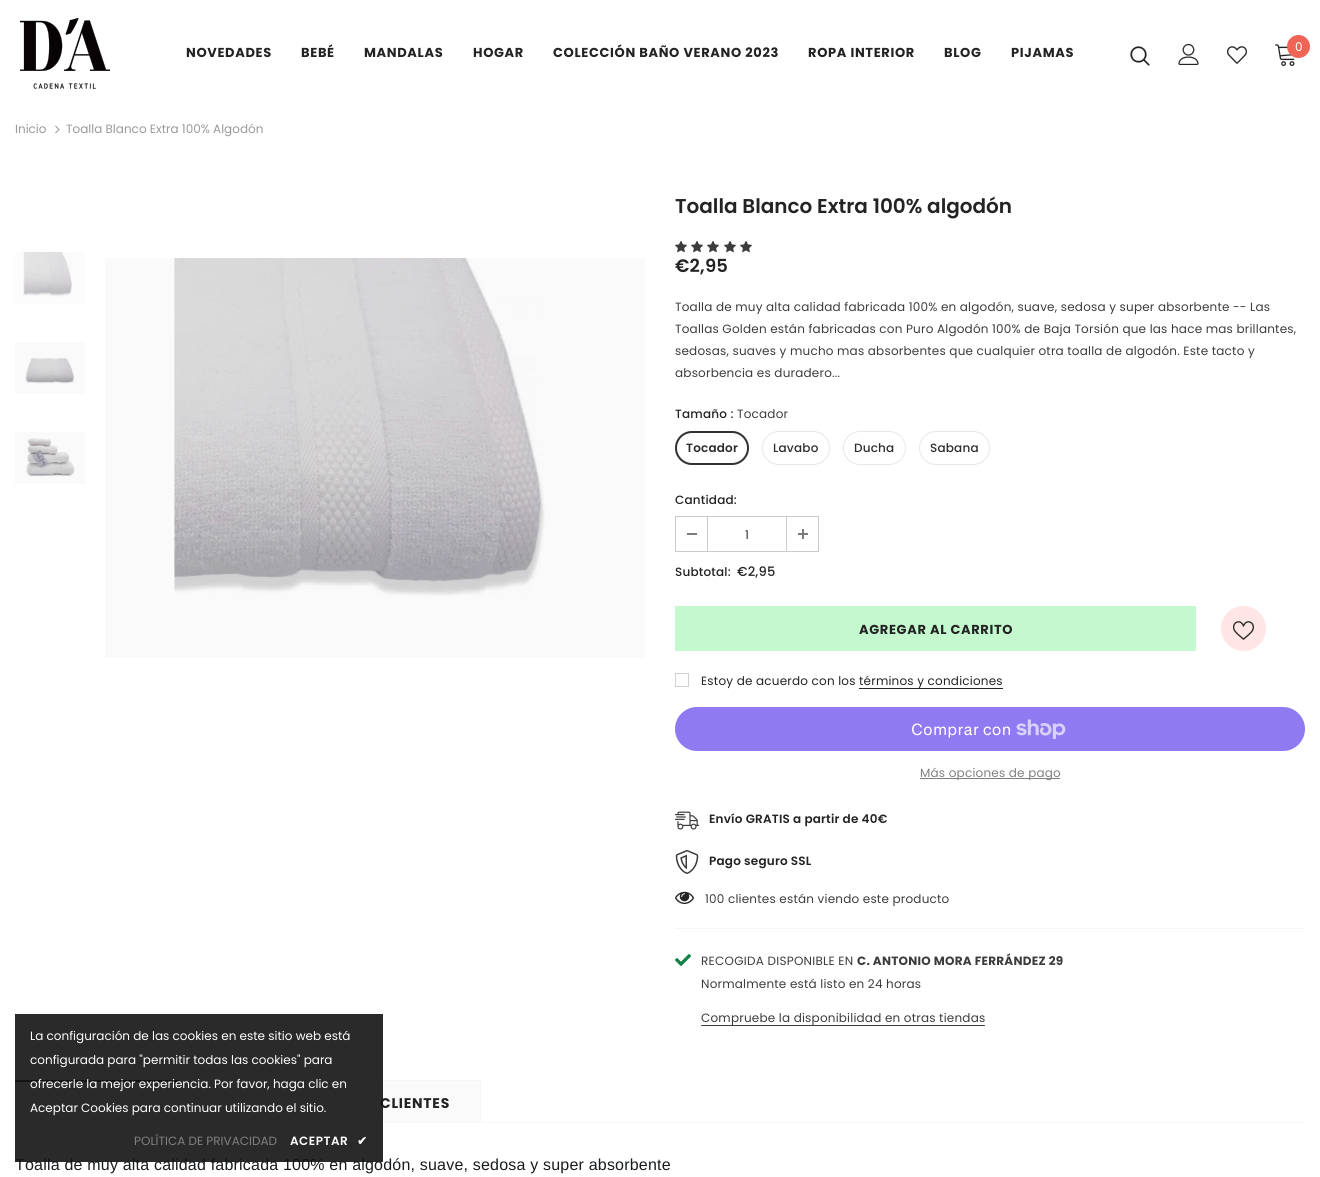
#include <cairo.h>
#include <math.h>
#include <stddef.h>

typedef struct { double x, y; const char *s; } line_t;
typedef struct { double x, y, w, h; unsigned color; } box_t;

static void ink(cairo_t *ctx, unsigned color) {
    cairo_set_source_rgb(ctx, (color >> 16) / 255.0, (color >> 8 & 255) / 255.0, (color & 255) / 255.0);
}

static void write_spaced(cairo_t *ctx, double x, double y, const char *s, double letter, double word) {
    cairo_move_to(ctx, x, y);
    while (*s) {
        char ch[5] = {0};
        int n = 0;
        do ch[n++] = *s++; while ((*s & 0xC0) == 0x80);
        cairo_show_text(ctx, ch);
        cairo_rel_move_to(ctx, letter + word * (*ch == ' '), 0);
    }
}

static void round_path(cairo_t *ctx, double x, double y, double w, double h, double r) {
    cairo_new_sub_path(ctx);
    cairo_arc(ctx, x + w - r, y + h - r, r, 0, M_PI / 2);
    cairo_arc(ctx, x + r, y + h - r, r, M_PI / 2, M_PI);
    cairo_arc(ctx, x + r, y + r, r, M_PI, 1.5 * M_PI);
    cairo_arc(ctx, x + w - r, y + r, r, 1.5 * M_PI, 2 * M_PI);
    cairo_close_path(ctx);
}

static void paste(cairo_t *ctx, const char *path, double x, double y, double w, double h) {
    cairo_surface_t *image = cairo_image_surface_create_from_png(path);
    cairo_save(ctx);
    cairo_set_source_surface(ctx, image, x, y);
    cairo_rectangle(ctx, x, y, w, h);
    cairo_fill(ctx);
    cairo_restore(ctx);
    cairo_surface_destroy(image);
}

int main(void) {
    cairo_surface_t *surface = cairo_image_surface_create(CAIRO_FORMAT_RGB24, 1320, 1177);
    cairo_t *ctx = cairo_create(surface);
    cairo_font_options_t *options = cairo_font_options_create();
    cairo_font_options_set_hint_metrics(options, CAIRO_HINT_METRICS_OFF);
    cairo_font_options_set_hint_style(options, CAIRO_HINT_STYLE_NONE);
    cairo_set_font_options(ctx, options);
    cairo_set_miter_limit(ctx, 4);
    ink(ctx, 0xFFFFFF);
    cairo_paint(ctx);
    paste(ctx, "media/1.png", 20, 18, 90, 71);
    cairo_select_font_face(ctx, "Poppins", CAIRO_FONT_SLANT_NORMAL, CAIRO_FONT_WEIGHT_BOLD);
    cairo_set_font_size(ctx, 13);
    ink(ctx, 0x232323);
    {
        static const line_t items[] = {
            {186, 57, "NOVEDADES"},
            {301, 57, "BEBÉ"},
            {364, 57, "MANDALAS"},
            {473, 57, "HOGAR"},
            {553, 57, "COLECCIÓN BAÑO VERANO 2023"},
            {808, 57, "ROPA INTERIOR"},
            {944, 57, "BLOG"},
            {1011, 57, "PIJAMAS"},
        };
        for (size_t i = 0; i < sizeof items / sizeof *items; i++) {
            write_spaced(ctx, items[i].x, items[i].y, items[i].s, 0.65, 0);
        }
    }
    paste(ctx, "media/2.png", 1130, 46, 20, 20);
    paste(ctx, "media/3.png", 1178, 44, 21, 21);
    paste(ctx, "media/4.png", 1227, 46, 20, 18);
    paste(ctx, "media/5.png", 1275, 44, 20, 22);
    ink(ctx, 0xEF6454);
    cairo_arc(ctx, 1298.5, 46.5, 11.5, 0, 2 * M_PI);
    cairo_fill(ctx);
    cairo_select_font_face(ctx, "Poppins", CAIRO_FONT_SLANT_NORMAL, CAIRO_FONT_WEIGHT_NORMAL);
    cairo_set_font_size(ctx, 12);
    ink(ctx, 0xFFFFFF);
    cairo_move_to(ctx, 1295, 51);
    cairo_show_text(ctx, "0");
    ink(ctx, 0x999999);
    cairo_move_to(ctx, 15, 133);
    cairo_show_text(ctx, "Inicio");
    paste(ctx, "media/6.png", 55, 125, 5, 9);
    cairo_move_to(ctx, 66, 133);
    cairo_show_text(ctx, "Toalla Blanco Extra 100% Algodón");
    ink(ctx, 0xFCFCFC);
    cairo_rectangle(ctx, 15, 252, 70, 52);
    cairo_fill(ctx);
    paste(ctx, "media/7.png", 23, 252, 50, 45);
    ink(ctx, 0xFAFAFA);
    cairo_rectangle(ctx, 15, 342, 70, 52);
    cairo_fill(ctx);
    paste(ctx, "media/8.png", 25, 358, 51, 26);
    cairo_rectangle(ctx, 15, 432, 70, 52);
    cairo_fill(ctx);
    paste(ctx, "media/9.png", 26, 438, 49, 39);
    cairo_rectangle(ctx, 105, 258, 540, 400);
    cairo_fill(ctx);
    paste(ctx, "media/10.png", 174, 258, 371, 338);
    cairo_select_font_face(ctx, "Poppins SemiBold", CAIRO_FONT_SLANT_NORMAL, CAIRO_FONT_WEIGHT_NORMAL);
    cairo_set_font_size(ctx, 20);
    ink(ctx, 0x232323);
    cairo_move_to(ctx, 675, 213);
    cairo_show_text(ctx, "Toalla Blanco Extra 100% algodón");
    paste(ctx, "media/11.png", 675, 240, 12, 13);
    paste(ctx, "media/11.png", 691, 240, 12, 13);
    paste(ctx, "media/11.png", 707, 240, 12, 13);
    paste(ctx, "media/11.png", 724, 240, 12, 13);
    paste(ctx, "media/11.png", 740, 240, 12, 13);
    cairo_set_font_size(ctx, 18);
    write_spaced(ctx, 675, 272, "€2,95", 0.2, 0);
    cairo_select_font_face(ctx, "Poppins", CAIRO_FONT_SLANT_NORMAL, CAIRO_FONT_WEIGHT_NORMAL);
    cairo_set_font_size(ctx, 12);
    ink(ctx, 0x3C3C3C);
    {
        static const line_t items[] = {
            {675, 311, "Toalla de muy alta calidad fabricada 100% en algodón, suave, sedosa y super absorbente -- Las"},
            {675, 333, "Toallas Golden están fabricadas con Puro Algodón 100% de Baja Torsión que las hace mas brillantes,"},
            {675, 355, "sedosas, suaves y mucho mas absorbentes que cualquier otra toalla de algodón. Este tacto y"},
            {675, 377, "absorbencia es duradero..."},
        };
        for (size_t i = 0; i < sizeof items / sizeof *items; i++) {
            write_spaced(ctx, items[i].x, items[i].y, items[i].s, 0.2, 0);
        }
    }
    cairo_select_font_face(ctx, "Poppins Medium", CAIRO_FONT_SLANT_NORMAL, CAIRO_FONT_WEIGHT_NORMAL);
    ink(ctx, 0x232323);
    write_spaced(ctx, 675, 418, "Tamaño :", 0.2, 0);
    cairo_select_font_face(ctx, "Poppins", CAIRO_FONT_SLANT_NORMAL, CAIRO_FONT_WEIGHT_NORMAL);
    ink(ctx, 0x3C3C3C);
    write_spaced(ctx, 737, 418, "Tocador", 0.2, 0);
    round_path(ctx, 675.5, 431.5, 73, 33, 16.5);
    ink(ctx, 0xE7E7E7);
    cairo_set_line_width(ctx, 1);
    cairo_stroke(ctx);
    round_path(ctx, 676, 432, 72, 32, 16);
    ink(ctx, 0x323232);
    cairo_set_line_width(ctx, 2);
    cairo_stroke(ctx);
    cairo_select_font_face(ctx, "Poppins SemiBold", CAIRO_FONT_SLANT_NORMAL, CAIRO_FONT_WEIGHT_NORMAL);
    ink(ctx, 0x2D2D2D);
    write_spaced(ctx, 686, 452, "Tocador", 0.2, 0);
    round_path(ctx, 762.5, 431.5, 67, 33, 16.5);
    ink(ctx, 0xE7E7E7);
    cairo_set_line_width(ctx, 1);
    cairo_stroke(ctx);
    cairo_select_font_face(ctx, "Poppins Medium", CAIRO_FONT_SLANT_NORMAL, CAIRO_FONT_WEIGHT_NORMAL);
    ink(ctx, 0x2D2D2D);
    write_spaced(ctx, 773, 452, "Lavabo", 0.2, 0);
    round_path(ctx, 843.5, 431.5, 62, 33, 16.5);
    ink(ctx, 0xE7E7E7);
    cairo_stroke(ctx);
    ink(ctx, 0x2D2D2D);
    write_spaced(ctx, 854, 452, "Ducha", 0.2, 0);
    round_path(ctx, 919.5, 431.5, 70, 33, 16.5);
    ink(ctx, 0xE7E7E7);
    cairo_stroke(ctx);
    ink(ctx, 0x2D2D2D);
    write_spaced(ctx, 930, 452, "Sabana", 0.2, 0);
    ink(ctx, 0x232323);
    write_spaced(ctx, 675, 504, "Cantidad:", 0.2, 0);
    cairo_rectangle(ctx, 675.5, 516.5, 143, 35);
    ink(ctx, 0xCBCBCB);
    cairo_stroke(ctx);
    cairo_rectangle(ctx, 707, 517, 1, 34);
    cairo_fill(ctx);
    ink(ctx, 0x7B7B7B);
    cairo_rectangle(ctx, 687, 533, 10, 2);
    cairo_fill(ctx);
    cairo_select_font_face(ctx, "Poppins", CAIRO_FONT_SLANT_NORMAL, CAIRO_FONT_WEIGHT_NORMAL);
    ink(ctx, 0x2D2D2D);
    cairo_move_to(ctx, 745, 539);
    cairo_show_text(ctx, "1");
    {
        static const box_t items[] = {
            {786, 517, 1, 34, 0xCBCBCB},
            {798, 533, 10, 2, 0x7B7B7B},
            {802, 529, 2, 10, 0x7B7B7B},
        };
        for (size_t i = 0; i < sizeof items / sizeof *items; i++) {
            ink(ctx, items[i].color);
            cairo_rectangle(ctx, items[i].x, items[i].y, items[i].w, items[i].h);
            cairo_fill(ctx);
        }
    }
    cairo_select_font_face(ctx, "Poppins Medium", CAIRO_FONT_SLANT_NORMAL, CAIRO_FONT_WEIGHT_NORMAL);
    ink(ctx, 0x232323);
    write_spaced(ctx, 675, 576, "Subtotal:", 0.2, 0);
    cairo_set_font_size(ctx, 13);
    write_spaced(ctx, 737, 576, "€2,95", 0.2, 0);
    ink(ctx, 0xC4F8CF);
    cairo_rectangle(ctx, 675, 606, 521, 45);
    cairo_fill(ctx);
    cairo_select_font_face(ctx, "Poppins", CAIRO_FONT_SLANT_NORMAL, CAIRO_FONT_WEIGHT_BOLD);
    ink(ctx, 0x232323);
    write_spaced(ctx, 859, 634, "AGREGAR AL CARRITO", 0.65, 0);
    ink(ctx, 0xFFE5E5);
    cairo_new_path(ctx);
    cairo_arc(ctx, 1243.5, 628.5, 22.5, 0, 2 * M_PI);
    cairo_fill(ctx);
    paste(ctx, "media/12.png", 1233, 621, 21, 19);
    cairo_rectangle(ctx, 675.5, 673.5, 13, 13);
    ink(ctx, 0xD0D0D0);
    cairo_stroke(ctx);
    cairo_select_font_face(ctx, "Poppins", CAIRO_FONT_SLANT_NORMAL, CAIRO_FONT_WEIGHT_NORMAL);
    cairo_set_font_size(ctx, 12);
    ink(ctx, 0x232323);
    write_spaced(ctx, 701, 685, "Estoy de acuerdo con los", 0.2, 0);
    cairo_rectangle(ctx, 859, 688, 144, 1);
    cairo_fill(ctx);
    write_spaced(ctx, 859, 685, "términos y condiciones", 0.2, 0);
    ink(ctx, 0x907AF2);
    round_path(ctx, 675, 707, 630, 44, 22);
    cairo_fill(ctx);
    cairo_select_font_face(ctx, "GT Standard", CAIRO_FONT_SLANT_NORMAL, CAIRO_FONT_WEIGHT_NORMAL);
    cairo_set_font_size(ctx, 16);
    ink(ctx, 0xFFFFFF);
    write_spaced(ctx, 911, 735, "Comprar con", 0.2, 0);
    paste(ctx, "media/13.png", 1016, 719, 50, 20);
    ink(ctx, 0x808080);
    cairo_rectangle(ctx, 920, 778, 140, 1);
    cairo_fill(ctx);
    cairo_select_font_face(ctx, "Poppins", CAIRO_FONT_SLANT_NORMAL, CAIRO_FONT_WEIGHT_NORMAL);
    cairo_set_font_size(ctx, 12);
    write_spaced(ctx, 920, 777, "Más opciones de pago", 0.2, 0);
    paste(ctx, "media/14.png", 675, 811, 24, 19);
    cairo_select_font_face(ctx, "Poppins SemiBold", CAIRO_FONT_SLANT_NORMAL, CAIRO_FONT_WEIGHT_NORMAL);
    ink(ctx, 0x232323);
    write_spaced(ctx, 709, 823, "Envío GRATIS a partir de 40€", 0.2, 0);
    paste(ctx, "media/15.png", 675, 850, 24, 24);
    write_spaced(ctx, 709, 865, "Pago seguro SSL", 0.2, 0);
    paste(ctx, "media/16.png", 675, 891, 19, 13);
    cairo_select_font_face(ctx, "Poppins", CAIRO_FONT_SLANT_NORMAL, CAIRO_FONT_WEIGHT_NORMAL);
    ink(ctx, 0x3C3C3C);
    write_spaced(ctx, 705, 903, "100 clientes están viendo este producto", 0.2, 0);
    ink(ctx, 0xF6F6F6);
    cairo_rectangle(ctx, 675, 928, 630, 1);
    cairo_fill(ctx);
    paste(ctx, "media/17.png", 675, 954, 16, 12);
    ink(ctx, 0x3C3C3C);
    write_spaced(ctx, 701, 965, "RECOGIDA DISPONIBLE EN", 0.25, 0);
    cairo_select_font_face(ctx, "Poppins", CAIRO_FONT_SLANT_NORMAL, CAIRO_FONT_WEIGHT_BOLD);
    write_spaced(ctx, 857, 965, "C. ANTONIO MORA FERRÁNDEZ 29", 0.25, 0);
    cairo_select_font_face(ctx, "Poppins", CAIRO_FONT_SLANT_NORMAL, CAIRO_FONT_WEIGHT_NORMAL);
    write_spaced(ctx, 701, 988, "Normalmente está listo en 24 horas", 0.2, 0);
    round_path(ctx, 701, 1025, 284, 1, 0.5);
    cairo_fill(ctx);
    write_spaced(ctx, 701, 1022, "Compruebe la disponibilidad en otras tiendas", 0.2, 0);
    {
        static const box_t items[] = {
            {15, 1122, 1290, 1, 0xF6F6F6},
            {15, 1080, 1, 42, 0xF6F6F6},
            {15, 1080, 165, 2, 0x232323},
            {16, 1122, 163, 1, 0xFFFFFF},
            {180, 1081, 300, 41, 0xFAFAFA},
            {179, 1080, 302, 1, 0xF6F6F6},
            {480, 1080, 1, 42, 0xF6F6F6},
            {179, 1080, 1, 42, 0xF6F6F6},
        };
        for (size_t i = 0; i < sizeof items / sizeof *items; i++) {
            ink(ctx, items[i].color);
            cairo_rectangle(ctx, items[i].x, items[i].y, items[i].w, items[i].h);
            cairo_fill(ctx);
        }
    }
    cairo_select_font_face(ctx, "Poppins", CAIRO_FONT_SLANT_NORMAL, CAIRO_FONT_WEIGHT_BOLD);
    cairo_set_font_size(ctx, 14);
    ink(ctx, 0x232323);
    write_spaced(ctx, 380, 1108, "CLIENTES", 0.75, 0);
    cairo_select_font_face(ctx, "Liberation Sans", CAIRO_FONT_SLANT_NORMAL, CAIRO_FONT_WEIGHT_NORMAL);
    cairo_set_font_size(ctx, 16);
    ink(ctx, 0x191C1F);
    write_spaced(ctx, 15, 1170, "Toalla de muy alta calidad fabricada 100% en algodón, suave, sedosa y super absorbente", 0.2, 0);
    cairo_set_source_rgba(ctx, 0.078, 0.078, 0.078, 0.9);
    cairo_rectangle(ctx, 15, 1014, 368, 148);
    cairo_fill(ctx);
    cairo_select_font_face(ctx, "Poppins", CAIRO_FONT_SLANT_NORMAL, CAIRO_FONT_WEIGHT_NORMAL);
    cairo_set_font_size(ctx, 12);
    ink(ctx, 0xFFFFFF);
    {
        static const line_t items[] = {
            {30, 1040, "La configuración de las cookies en este sitio web está"},
            {30, 1064, "configurada para \"permitir todas las cookies\" para"},
            {30, 1088, "ofrecerle la mejor experiencia. Por favor, haga clic en"},
            {30, 1112, "Aceptar Cookies para continuar utilizando el sitio."},
        };
        for (size_t i = 0; i < sizeof items / sizeof *items; i++) {
            cairo_move_to(ctx, items[i].x, items[i].y);
            cairo_show_text(ctx, items[i].s);
        }
    }
    ink(ctx, 0x808080);
    cairo_move_to(ctx, 134, 1145);
    cairo_show_text(ctx, "POLÍTICA DE PRIVACIDAD");
    cairo_select_font_face(ctx, "Poppins SemiBold", CAIRO_FONT_SLANT_NORMAL, CAIRO_FONT_WEIGHT_NORMAL);
    ink(ctx, 0xFFFFFF);
    write_spaced(ctx, 290, 1145, "ACEPTAR", 0.5, 0);
    cairo_select_font_face(ctx, "DejaVu Sans", CAIRO_FONT_SLANT_NORMAL, CAIRO_FONT_WEIGHT_BOLD);
    write_spaced(ctx, 357, 1145, "✔", 0.5, 0);
    cairo_surface_write_to_png(surface, "image.png");
    cairo_font_options_destroy(options);
    cairo_destroy(ctx);
    cairo_surface_destroy(surface);
    return 0;
}
